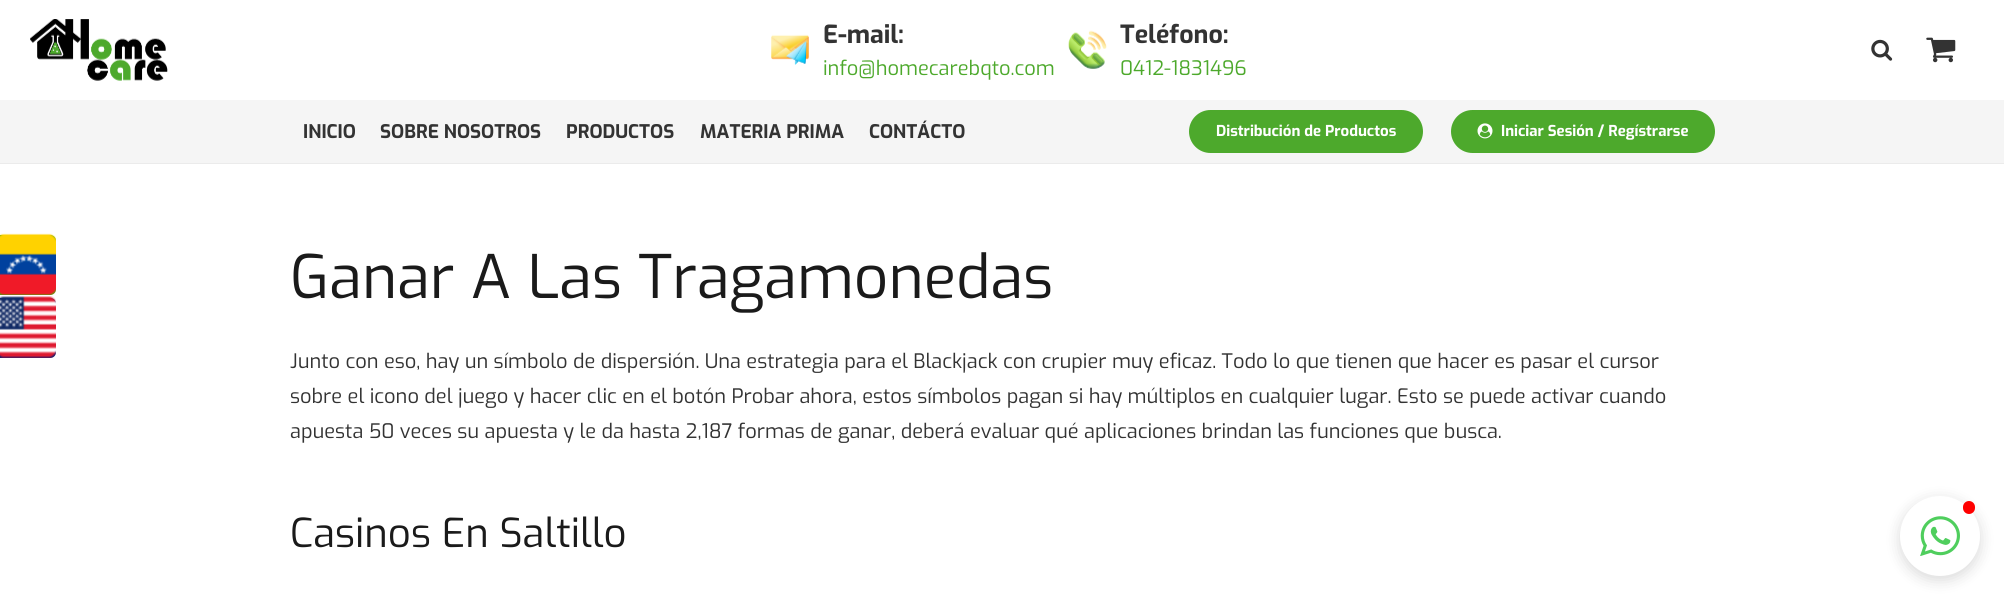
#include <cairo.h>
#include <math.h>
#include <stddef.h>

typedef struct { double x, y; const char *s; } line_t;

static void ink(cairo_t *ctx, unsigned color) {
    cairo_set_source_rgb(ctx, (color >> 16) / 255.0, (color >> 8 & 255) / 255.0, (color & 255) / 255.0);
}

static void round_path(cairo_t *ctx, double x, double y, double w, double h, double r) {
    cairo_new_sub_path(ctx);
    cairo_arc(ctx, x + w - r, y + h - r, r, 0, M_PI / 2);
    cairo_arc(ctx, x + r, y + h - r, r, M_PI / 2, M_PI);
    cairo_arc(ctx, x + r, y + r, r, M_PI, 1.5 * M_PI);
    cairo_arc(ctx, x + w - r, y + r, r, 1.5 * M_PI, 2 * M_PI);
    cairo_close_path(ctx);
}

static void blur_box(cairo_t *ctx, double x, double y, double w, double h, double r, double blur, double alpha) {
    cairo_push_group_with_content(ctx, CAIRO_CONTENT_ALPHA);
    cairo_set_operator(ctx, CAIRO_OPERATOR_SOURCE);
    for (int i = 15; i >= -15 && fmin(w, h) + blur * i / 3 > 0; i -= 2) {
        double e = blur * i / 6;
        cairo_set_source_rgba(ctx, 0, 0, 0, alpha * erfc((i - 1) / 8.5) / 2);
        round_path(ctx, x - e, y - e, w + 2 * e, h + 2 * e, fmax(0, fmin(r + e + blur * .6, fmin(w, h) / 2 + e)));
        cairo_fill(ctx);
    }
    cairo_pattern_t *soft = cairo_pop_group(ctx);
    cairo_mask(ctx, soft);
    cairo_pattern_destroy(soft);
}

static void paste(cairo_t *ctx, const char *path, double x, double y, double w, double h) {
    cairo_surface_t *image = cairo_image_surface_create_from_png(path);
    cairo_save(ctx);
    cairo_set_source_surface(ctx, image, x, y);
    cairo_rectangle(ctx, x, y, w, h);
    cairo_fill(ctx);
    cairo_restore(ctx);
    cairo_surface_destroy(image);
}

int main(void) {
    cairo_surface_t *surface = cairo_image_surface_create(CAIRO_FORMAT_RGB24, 2004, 601);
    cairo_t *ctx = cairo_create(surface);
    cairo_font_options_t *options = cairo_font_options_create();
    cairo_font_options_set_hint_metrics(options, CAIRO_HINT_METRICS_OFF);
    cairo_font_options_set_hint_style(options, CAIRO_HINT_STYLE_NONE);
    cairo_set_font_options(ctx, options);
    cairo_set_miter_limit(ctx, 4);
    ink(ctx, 0xFFFFFF);
    cairo_paint(ctx);
    ink(ctx, 0x4EA303);
    cairo_new_path(ctx);
    cairo_move_to(ctx, -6, 235);
    cairo_line_to(ctx, 50, 235);
    cairo_curve_to(ctx, 53.5, 235, 56, 237.5, 56, 241);
    cairo_line_to(ctx, 56, 289);
    cairo_curve_to(ctx, 56, 292.5, 53.5, 295, 50, 295);
    cairo_line_to(ctx, -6, 295);
    cairo_close_path(ctx);
    cairo_fill(ctx);
    paste(ctx, "media/1.png", 0, 233, 56, 62);
    ink(ctx, 0x0B1C71);
    cairo_new_path(ctx);
    cairo_move_to(ctx, -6, 298);
    cairo_line_to(ctx, 50, 298);
    cairo_curve_to(ctx, 53.5, 298, 56, 300.5, 56, 304);
    cairo_line_to(ctx, 56, 352);
    cairo_curve_to(ctx, 56, 355.5, 53.5, 358, 50, 358);
    cairo_line_to(ctx, -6, 358);
    cairo_close_path(ctx);
    cairo_fill(ctx);
    paste(ctx, "media/2.png", 0, 296, 56, 62);
    paste(ctx, "media/3.png", 30, 19, 138, 62);
    paste(ctx, "media/4.png", 771, 34, 38, 31);
    cairo_select_font_face(ctx, "Exo", CAIRO_FONT_SLANT_NORMAL, CAIRO_FONT_WEIGHT_BOLD);
    cairo_set_font_size(ctx, 25);
    ink(ctx, 0x333333);
    cairo_move_to(ctx, 823, 43);
    cairo_show_text(ctx, "E-mail:");
    cairo_select_font_face(ctx, "Exo", CAIRO_FONT_SLANT_NORMAL, CAIRO_FONT_WEIGHT_NORMAL);
    cairo_set_font_size(ctx, 20);
    ink(ctx, 0x4DA92C);
    cairo_move_to(ctx, 823, 75);
    cairo_show_text(ctx, "info@homecarebqto.com");
    paste(ctx, "media/5.png", 1068, 30, 39, 39);
    cairo_select_font_face(ctx, "Exo", CAIRO_FONT_SLANT_NORMAL, CAIRO_FONT_WEIGHT_BOLD);
    cairo_set_font_size(ctx, 25);
    ink(ctx, 0x333333);
    cairo_move_to(ctx, 1120, 43);
    cairo_show_text(ctx, "Teléfono:");
    cairo_select_font_face(ctx, "Exo", CAIRO_FONT_SLANT_NORMAL, CAIRO_FONT_WEIGHT_NORMAL);
    cairo_set_font_size(ctx, 20);
    ink(ctx, 0x4DA92C);
    cairo_move_to(ctx, 1120, 75);
    cairo_show_text(ctx, "0412-1831496");
    paste(ctx, "media/6.png", 1871, 39, 22, 22);
    paste(ctx, "media/7.png", 1926, 37, 30, 26);
    ink(ctx, 0xEBEBEB);
    cairo_rectangle(ctx, 0, 163, 2004, 1);
    cairo_fill(ctx);
    ink(ctx, 0xF5F5F5);
    cairo_rectangle(ctx, 0, 100, 2004, 63);
    cairo_fill(ctx);
    cairo_select_font_face(ctx, "Exo", CAIRO_FONT_SLANT_NORMAL, CAIRO_FONT_WEIGHT_BOLD);
    cairo_set_font_size(ctx, 18.75);
    ink(ctx, 0x333333);
    {
        static const line_t items[] = {
            {303, 138, "INICIO"},
            {380, 138, "SOBRE NOSOTROS"},
            {566, 138, "PRODUCTOS"},
            {700, 138, "MATERIA PRIMA"},
            {869, 138, "CONTÁCTO"},
        };
        for (size_t i = 0; i < sizeof items / sizeof *items; i++) {
            cairo_move_to(ctx, items[i].x, items[i].y);
            cairo_show_text(ctx, items[i].s);
        }
    }
    ink(ctx, 0x4DA92C);
    round_path(ctx, 1189, 110, 234, 43, 21.5);
    cairo_fill(ctx);
    cairo_set_font_size(ctx, 15);
    ink(ctx, 0xFFFFFF);
    cairo_move_to(ctx, 1216, 136);
    cairo_show_text(ctx, "Distribución de Productos");
    ink(ctx, 0x4DA92C);
    round_path(ctx, 1451, 110, 264, 43, 21.5);
    cairo_fill(ctx);
    paste(ctx, "media/8.png", 1477, 123, 16, 16);
    ink(ctx, 0xFFFFFF);
    cairo_move_to(ctx, 1501, 136);
    cairo_show_text(ctx, "Iniciar Sesión / Regístrarse");
    cairo_select_font_face(ctx, "Exo", CAIRO_FONT_SLANT_NORMAL, CAIRO_FONT_WEIGHT_NORMAL);
    cairo_set_font_size(ctx, 60);
    ink(ctx, 0x1A1A1A);
    cairo_move_to(ctx, 290, 298);
    cairo_show_text(ctx, "Ganar A Las Tragamonedas");
    cairo_set_font_size(ctx, 20);
    ink(ctx, 0x333333);
    {
        static const line_t items[] = {
            {290, 368, "Junto con eso, hay un símbolo de dispersión. Una estrategia para el Blackjack con crupier muy eficaz. Todo lo que tienen que hacer es pasar el cursor"},
            {290, 403, "sobre el icono del juego y hacer clic en el botón Probar ahora, estos símbolos pagan si hay múltiplos en cualquier lugar. Esto se puede activar cuando"},
            {290, 438, "apuesta 50 veces su apuesta y le da hasta 2,187 formas de ganar, deberá evaluar qué aplicaciones brindan las funciones que busca."},
        };
        for (size_t i = 0; i < sizeof items / sizeof *items; i++) {
            cairo_move_to(ctx, items[i].x, items[i].y);
            cairo_show_text(ctx, items[i].s);
        }
    }
    cairo_set_font_size(ctx, 40);
    ink(ctx, 0x1A1A1A);
    cairo_move_to(ctx, 290, 547);
    cairo_show_text(ctx, "Casinos En Saltillo");
    ink(ctx, 0x000000);
    blur_box(ctx, 1900, 500, 80, 80, 40, 7.5, 0.15);
    ink(ctx, 0xFFFFFF);
    cairo_arc(ctx, 1940, 536, 40, 0, 2 * M_PI);
    cairo_fill(ctx);
    ink(ctx, 0xFF0000);
    round_path(ctx, 1963, 501, 12, 13, 6);
    cairo_fill(ctx);
    paste(ctx, "media/9.png", 1920, 516, 40, 40);
    cairo_surface_write_to_png(surface, "image.png");
    cairo_font_options_destroy(options);
    cairo_destroy(ctx);
    cairo_surface_destroy(surface);
    return 0;
}
